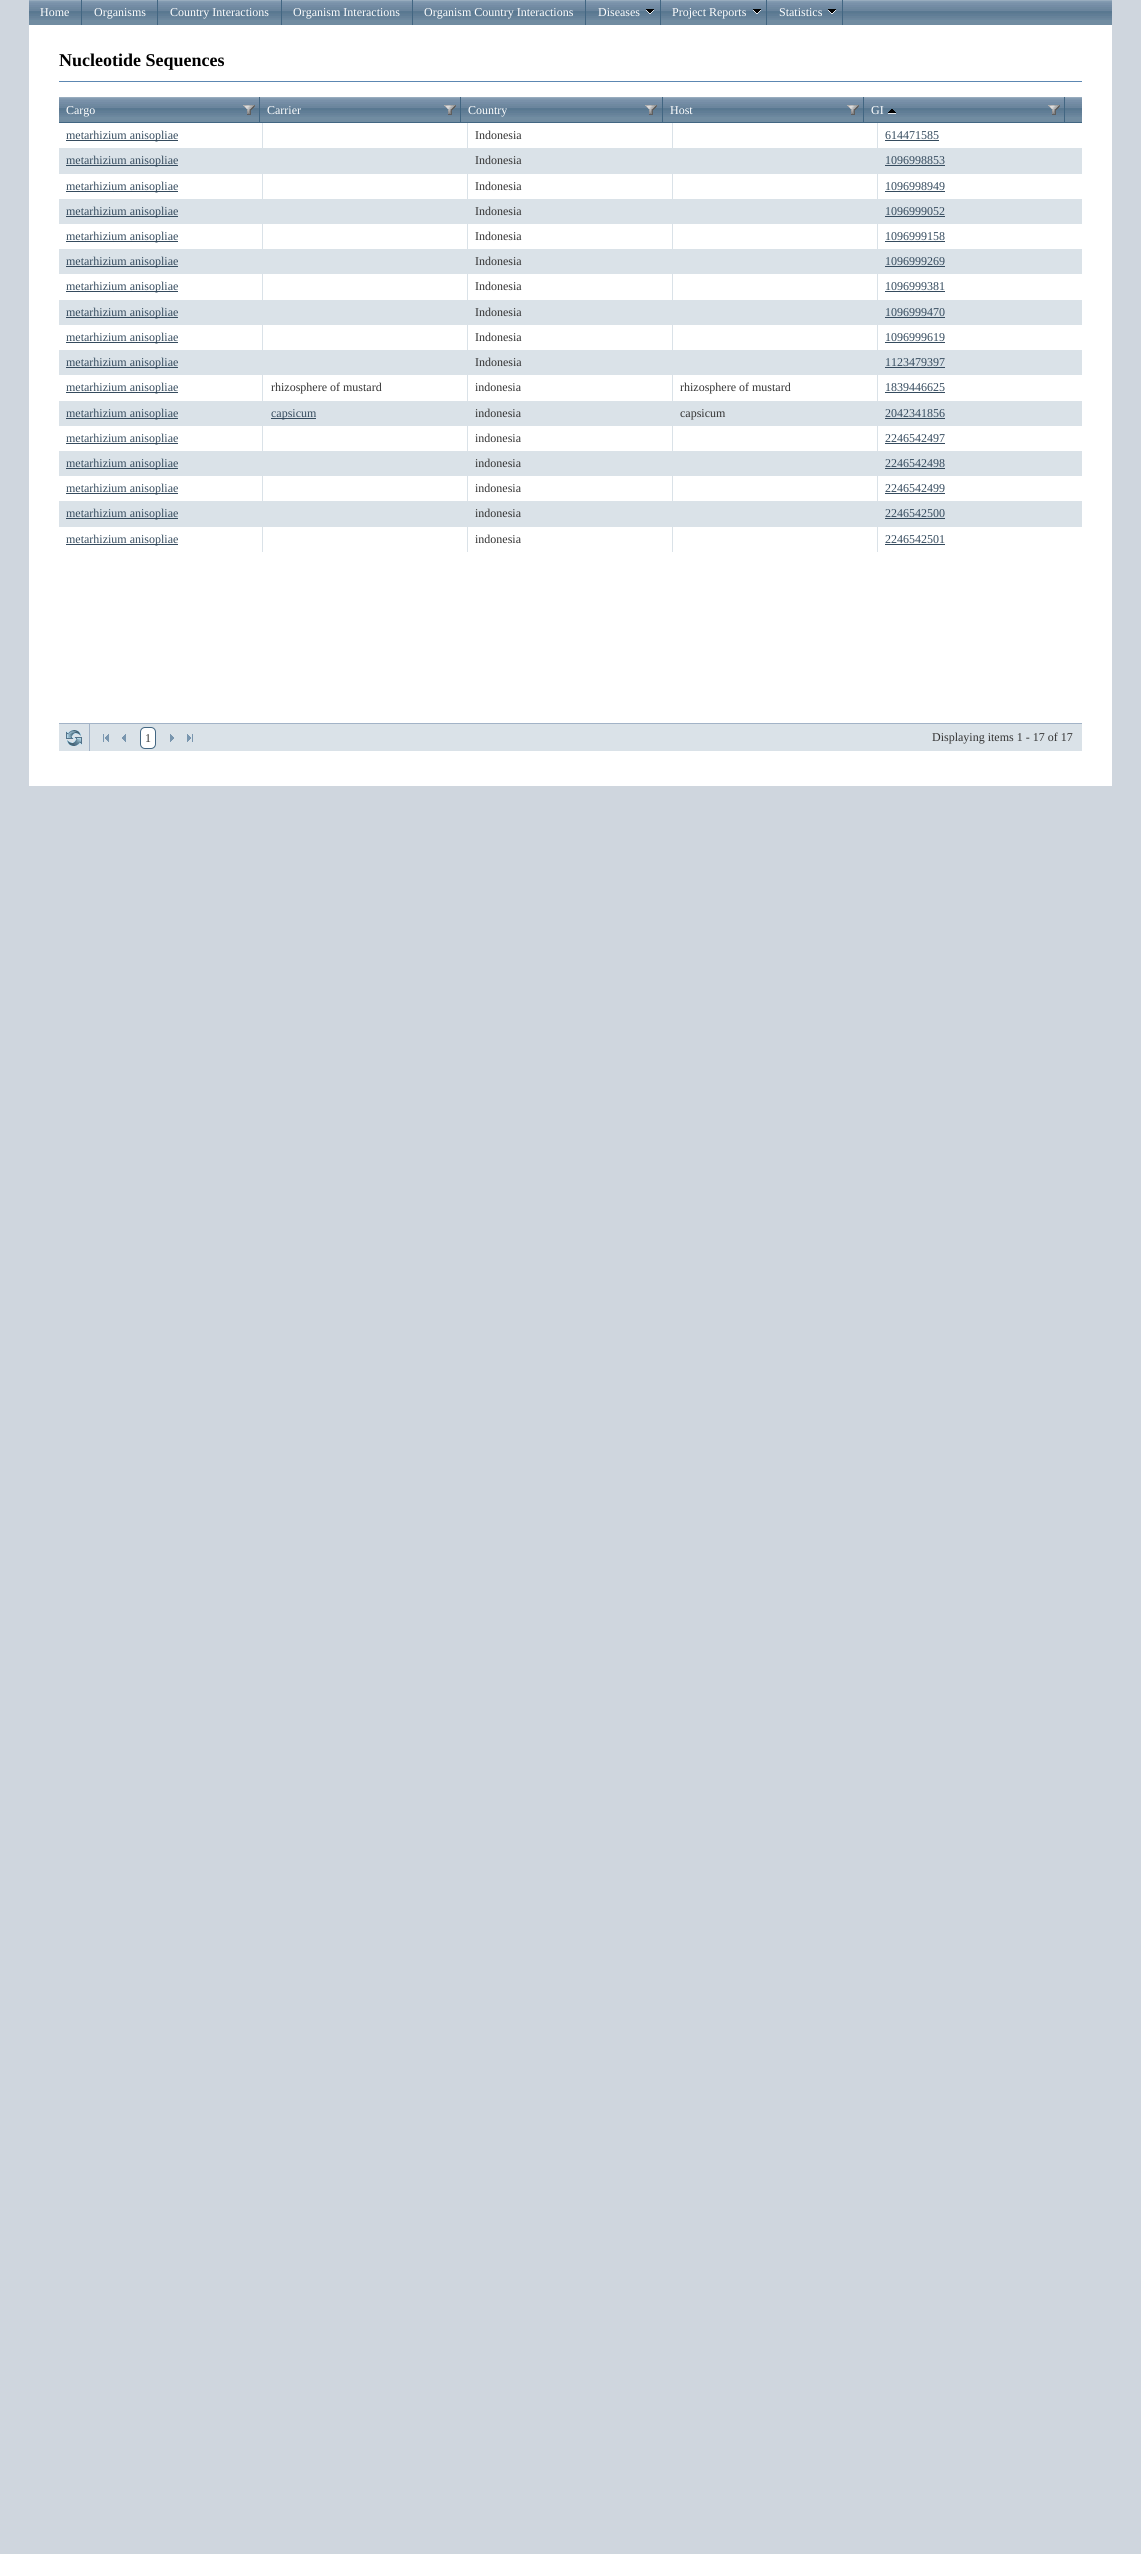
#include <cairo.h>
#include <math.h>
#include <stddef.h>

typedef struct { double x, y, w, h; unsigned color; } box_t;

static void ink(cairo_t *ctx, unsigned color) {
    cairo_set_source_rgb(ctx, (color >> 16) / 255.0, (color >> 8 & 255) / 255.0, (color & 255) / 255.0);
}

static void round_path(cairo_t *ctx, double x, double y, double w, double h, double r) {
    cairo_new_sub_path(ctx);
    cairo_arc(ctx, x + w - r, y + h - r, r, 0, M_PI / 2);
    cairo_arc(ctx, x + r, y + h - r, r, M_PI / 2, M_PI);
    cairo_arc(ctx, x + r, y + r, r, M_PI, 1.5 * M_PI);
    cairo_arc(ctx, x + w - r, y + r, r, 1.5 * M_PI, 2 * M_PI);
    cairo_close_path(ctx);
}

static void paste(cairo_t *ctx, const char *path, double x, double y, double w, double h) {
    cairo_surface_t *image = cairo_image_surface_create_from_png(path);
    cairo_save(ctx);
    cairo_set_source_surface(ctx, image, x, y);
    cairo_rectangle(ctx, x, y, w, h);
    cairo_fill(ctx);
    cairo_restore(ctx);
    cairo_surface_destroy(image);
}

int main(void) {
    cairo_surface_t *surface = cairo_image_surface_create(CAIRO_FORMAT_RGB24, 1141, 2554);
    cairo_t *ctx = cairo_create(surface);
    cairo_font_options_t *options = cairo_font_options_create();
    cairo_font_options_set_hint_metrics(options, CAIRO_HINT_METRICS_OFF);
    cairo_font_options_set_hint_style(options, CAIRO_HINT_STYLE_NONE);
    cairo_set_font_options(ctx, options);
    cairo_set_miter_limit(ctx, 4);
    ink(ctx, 0xCFD6DE);
    cairo_paint(ctx);
    ink(ctx, 0x718CA1);
    cairo_rectangle(ctx, 29, 20, 1083, 5);
    cairo_fill(ctx);
    paste(ctx, "media/1.png", 29, 0, 1083, 20);
    ink(ctx, 0x426682);
    cairo_rectangle(ctx, 81, 0, 1, 25);
    cairo_fill(ctx);
    cairo_select_font_face(ctx, "Liberation Serif", CAIRO_FONT_SLANT_NORMAL, CAIRO_FONT_WEIGHT_NORMAL);
    cairo_set_font_size(ctx, 12);
    ink(ctx, 0xFFFFFF);
    cairo_move_to(ctx, 40, 16);
    cairo_show_text(ctx, "Home");
    ink(ctx, 0x426682);
    cairo_rectangle(ctx, 157, 0, 1, 25);
    cairo_fill(ctx);
    ink(ctx, 0xFFFFFF);
    cairo_move_to(ctx, 94, 16);
    cairo_show_text(ctx, "Organisms");
    ink(ctx, 0x426682);
    cairo_rectangle(ctx, 281, 0, 1, 25);
    cairo_fill(ctx);
    ink(ctx, 0xFFFFFF);
    cairo_move_to(ctx, 170, 16);
    cairo_show_text(ctx, "Country Interactions");
    ink(ctx, 0x426682);
    cairo_rectangle(ctx, 412, 0, 1, 25);
    cairo_fill(ctx);
    ink(ctx, 0xFFFFFF);
    cairo_move_to(ctx, 293, 16);
    cairo_show_text(ctx, "Organism Interactions");
    ink(ctx, 0x426682);
    cairo_rectangle(ctx, 585, 0, 1, 25);
    cairo_fill(ctx);
    ink(ctx, 0xFFFFFF);
    cairo_move_to(ctx, 424, 16);
    cairo_show_text(ctx, "Organism Country Interactions");
    ink(ctx, 0x426682);
    cairo_rectangle(ctx, 660, 0, 1, 25);
    cairo_fill(ctx);
    ink(ctx, 0xFFFFFF);
    cairo_move_to(ctx, 598, 16);
    cairo_show_text(ctx, "Diseases");
    paste(ctx, "media/2.png", 646, 9, 8, 5);
    ink(ctx, 0x426682);
    cairo_rectangle(ctx, 766, 0, 1, 25);
    cairo_fill(ctx);
    ink(ctx, 0xFFFFFF);
    cairo_move_to(ctx, 672, 16);
    cairo_show_text(ctx, "Project Reports");
    paste(ctx, "media/2.png", 753, 9, 8, 5);
    ink(ctx, 0x426682);
    cairo_rectangle(ctx, 842, 0, 1, 25);
    cairo_fill(ctx);
    ink(ctx, 0xFFFFFF);
    cairo_move_to(ctx, 779, 16);
    cairo_show_text(ctx, "Statistics");
    paste(ctx, "media/2.png", 828, 9, 8, 5);
    cairo_rectangle(ctx, 29, 25, 1083, 761);
    cairo_fill(ctx);
    ink(ctx, 0x5C87B2);
    cairo_rectangle(ctx, 59, 81, 1023, 1);
    cairo_fill(ctx);
    cairo_select_font_face(ctx, "Liberation Serif", CAIRO_FONT_SLANT_NORMAL, CAIRO_FONT_WEIGHT_BOLD);
    cairo_set_font_size(ctx, 18);
    ink(ctx, 0x000000);
    cairo_move_to(ctx, 59, 66);
    cairo_show_text(ctx, "Nucleotide Sequences");
    ink(ctx, 0x718CA1);
    cairo_rectangle(ctx, 1065, 117, 17, 5);
    cairo_fill(ctx);
    paste(ctx, "media/3.png", 1065, 97, 17, 20);
    ink(ctx, 0x426682);
    cairo_rectangle(ctx, 59, 122, 1023, 1);
    cairo_fill(ctx);
    ink(ctx, 0x718CA1);
    cairo_rectangle(ctx, 59, 117, 200, 5);
    cairo_fill(ctx);
    paste(ctx, "media/4.png", 59, 97, 200, 20);
    ink(ctx, 0x426682);
    cairo_rectangle(ctx, 259, 97, 1, 25);
    cairo_fill(ctx);
    cairo_select_font_face(ctx, "Liberation Serif", CAIRO_FONT_SLANT_NORMAL, CAIRO_FONT_WEIGHT_NORMAL);
    cairo_set_font_size(ctx, 12);
    ink(ctx, 0xFFFFFF);
    cairo_move_to(ctx, 66, 114);
    cairo_show_text(ctx, "Cargo");
    paste(ctx, "media/5.png", 243, 105, 12, 10);
    ink(ctx, 0x718CA1);
    cairo_rectangle(ctx, 260, 117, 200, 5);
    cairo_fill(ctx);
    paste(ctx, "media/4.png", 260, 97, 200, 20);
    ink(ctx, 0x426682);
    cairo_rectangle(ctx, 460, 97, 1, 25);
    cairo_fill(ctx);
    ink(ctx, 0xFFFFFF);
    cairo_move_to(ctx, 267, 114);
    cairo_show_text(ctx, "Carrier");
    paste(ctx, "media/5.png", 444, 105, 12, 10);
    ink(ctx, 0x718CA1);
    cairo_rectangle(ctx, 461, 117, 201, 5);
    cairo_fill(ctx);
    paste(ctx, "media/6.png", 461, 97, 201, 20);
    ink(ctx, 0x426682);
    cairo_rectangle(ctx, 662, 97, 1, 25);
    cairo_fill(ctx);
    ink(ctx, 0xFFFFFF);
    cairo_move_to(ctx, 468, 114);
    cairo_show_text(ctx, "Country");
    paste(ctx, "media/5.png", 645, 105, 12, 10);
    ink(ctx, 0x718CA1);
    cairo_rectangle(ctx, 663, 117, 200, 5);
    cairo_fill(ctx);
    paste(ctx, "media/4.png", 663, 97, 200, 20);
    ink(ctx, 0x426682);
    cairo_rectangle(ctx, 863, 97, 1, 25);
    cairo_fill(ctx);
    ink(ctx, 0xFFFFFF);
    cairo_move_to(ctx, 670, 114);
    cairo_show_text(ctx, "Host");
    paste(ctx, "media/5.png", 847, 105, 12, 10);
    ink(ctx, 0x718CA1);
    cairo_rectangle(ctx, 864, 117, 200, 5);
    cairo_fill(ctx);
    paste(ctx, "media/4.png", 864, 97, 200, 20);
    ink(ctx, 0x426682);
    cairo_rectangle(ctx, 1064, 97, 1, 25);
    cairo_fill(ctx);
    ink(ctx, 0xFFFFFF);
    cairo_move_to(ctx, 871, 114);
    cairo_show_text(ctx, "GI");
    paste(ctx, "media/7.png", 888, 109, 8, 5);
    paste(ctx, "media/5.png", 1048, 105, 12, 10);
    ink(ctx, 0xDAE2E8);
    cairo_rectangle(ctx, 262, 123, 1, 25);
    cairo_fill(ctx);
    ink(ctx, 0x354B5E);
    cairo_rectangle(ctx, 66, 140, 112, 1);
    cairo_fill(ctx);
    cairo_move_to(ctx, 66, 139);
    cairo_show_text(ctx, "metarhizium anisopliae");
    ink(ctx, 0xDAE2E8);
    cairo_rectangle(ctx, 467, 123, 1, 25);
    cairo_fill(ctx);
    cairo_rectangle(ctx, 672, 123, 1, 25);
    cairo_fill(ctx);
    ink(ctx, 0x333333);
    cairo_move_to(ctx, 475, 139);
    cairo_show_text(ctx, "Indonesia");
    ink(ctx, 0xDAE2E8);
    cairo_rectangle(ctx, 877, 123, 1, 25);
    cairo_fill(ctx);
    ink(ctx, 0x354B5E);
    cairo_move_to(ctx, 885, 139);
    cairo_show_text(ctx, "614471585");
    {
        static const box_t items[] = {
            {885, 140, 54, 1, 0x354B5E},
            {59, 148, 1023, 26, 0xDAE2E8},
            {66, 165, 112, 1, 0x354B5E},
        };
        for (size_t i = 0; i < sizeof items / sizeof *items; i++) {
            ink(ctx, items[i].color);
            cairo_rectangle(ctx, items[i].x, items[i].y, items[i].w, items[i].h);
            cairo_fill(ctx);
        }
    }
    cairo_move_to(ctx, 66, 164);
    cairo_show_text(ctx, "metarhizium anisopliae");
    ink(ctx, 0x333333);
    cairo_move_to(ctx, 475, 164);
    cairo_show_text(ctx, "Indonesia");
    ink(ctx, 0x354B5E);
    cairo_move_to(ctx, 885, 164);
    cairo_show_text(ctx, "1096998853");
    {
        static const box_t items[] = {
            {885, 165, 60, 1, 0x354B5E},
            {262, 174, 1, 25, 0xDAE2E8},
            {66, 191, 112, 1, 0x354B5E},
        };
        for (size_t i = 0; i < sizeof items / sizeof *items; i++) {
            ink(ctx, items[i].color);
            cairo_rectangle(ctx, items[i].x, items[i].y, items[i].w, items[i].h);
            cairo_fill(ctx);
        }
    }
    cairo_move_to(ctx, 66, 190);
    cairo_show_text(ctx, "metarhizium anisopliae");
    ink(ctx, 0xDAE2E8);
    cairo_rectangle(ctx, 467, 174, 1, 25);
    cairo_fill(ctx);
    cairo_rectangle(ctx, 672, 174, 1, 25);
    cairo_fill(ctx);
    ink(ctx, 0x333333);
    cairo_move_to(ctx, 475, 190);
    cairo_show_text(ctx, "Indonesia");
    ink(ctx, 0xDAE2E8);
    cairo_rectangle(ctx, 877, 174, 1, 25);
    cairo_fill(ctx);
    ink(ctx, 0x354B5E);
    cairo_move_to(ctx, 885, 190);
    cairo_show_text(ctx, "1096998949");
    {
        static const box_t items[] = {
            {885, 191, 60, 1, 0x354B5E},
            {59, 199, 1023, 25, 0xDAE2E8},
            {66, 216, 112, 1, 0x354B5E},
        };
        for (size_t i = 0; i < sizeof items / sizeof *items; i++) {
            ink(ctx, items[i].color);
            cairo_rectangle(ctx, items[i].x, items[i].y, items[i].w, items[i].h);
            cairo_fill(ctx);
        }
    }
    cairo_move_to(ctx, 66, 215);
    cairo_show_text(ctx, "metarhizium anisopliae");
    ink(ctx, 0x333333);
    cairo_move_to(ctx, 475, 215);
    cairo_show_text(ctx, "Indonesia");
    ink(ctx, 0x354B5E);
    cairo_move_to(ctx, 885, 215);
    cairo_show_text(ctx, "1096999052");
    {
        static const box_t items[] = {
            {885, 216, 60, 1, 0x354B5E},
            {262, 224, 1, 25, 0xDAE2E8},
            {66, 241, 112, 1, 0x354B5E},
        };
        for (size_t i = 0; i < sizeof items / sizeof *items; i++) {
            ink(ctx, items[i].color);
            cairo_rectangle(ctx, items[i].x, items[i].y, items[i].w, items[i].h);
            cairo_fill(ctx);
        }
    }
    cairo_move_to(ctx, 66, 240);
    cairo_show_text(ctx, "metarhizium anisopliae");
    ink(ctx, 0xDAE2E8);
    cairo_rectangle(ctx, 467, 224, 1, 25);
    cairo_fill(ctx);
    cairo_rectangle(ctx, 672, 224, 1, 25);
    cairo_fill(ctx);
    ink(ctx, 0x333333);
    cairo_move_to(ctx, 475, 240);
    cairo_show_text(ctx, "Indonesia");
    ink(ctx, 0xDAE2E8);
    cairo_rectangle(ctx, 877, 224, 1, 25);
    cairo_fill(ctx);
    ink(ctx, 0x354B5E);
    cairo_move_to(ctx, 885, 240);
    cairo_show_text(ctx, "1096999158");
    {
        static const box_t items[] = {
            {885, 241, 60, 1, 0x354B5E},
            {59, 249, 1023, 25, 0xDAE2E8},
            {66, 266, 112, 1, 0x354B5E},
        };
        for (size_t i = 0; i < sizeof items / sizeof *items; i++) {
            ink(ctx, items[i].color);
            cairo_rectangle(ctx, items[i].x, items[i].y, items[i].w, items[i].h);
            cairo_fill(ctx);
        }
    }
    cairo_move_to(ctx, 66, 265);
    cairo_show_text(ctx, "metarhizium anisopliae");
    ink(ctx, 0x333333);
    cairo_move_to(ctx, 475, 265);
    cairo_show_text(ctx, "Indonesia");
    ink(ctx, 0x354B5E);
    cairo_move_to(ctx, 885, 265);
    cairo_show_text(ctx, "1096999269");
    {
        static const box_t items[] = {
            {885, 266, 60, 1, 0x354B5E},
            {262, 274, 1, 26, 0xDAE2E8},
            {66, 291, 112, 1, 0x354B5E},
        };
        for (size_t i = 0; i < sizeof items / sizeof *items; i++) {
            ink(ctx, items[i].color);
            cairo_rectangle(ctx, items[i].x, items[i].y, items[i].w, items[i].h);
            cairo_fill(ctx);
        }
    }
    cairo_move_to(ctx, 66, 290);
    cairo_show_text(ctx, "metarhizium anisopliae");
    ink(ctx, 0xDAE2E8);
    cairo_rectangle(ctx, 467, 274, 1, 26);
    cairo_fill(ctx);
    cairo_rectangle(ctx, 672, 274, 1, 26);
    cairo_fill(ctx);
    ink(ctx, 0x333333);
    cairo_move_to(ctx, 475, 290);
    cairo_show_text(ctx, "Indonesia");
    ink(ctx, 0xDAE2E8);
    cairo_rectangle(ctx, 877, 274, 1, 26);
    cairo_fill(ctx);
    ink(ctx, 0x354B5E);
    cairo_move_to(ctx, 885, 290);
    cairo_show_text(ctx, "1096999381");
    {
        static const box_t items[] = {
            {885, 291, 60, 1, 0x354B5E},
            {59, 300, 1023, 25, 0xDAE2E8},
            {66, 317, 112, 1, 0x354B5E},
        };
        for (size_t i = 0; i < sizeof items / sizeof *items; i++) {
            ink(ctx, items[i].color);
            cairo_rectangle(ctx, items[i].x, items[i].y, items[i].w, items[i].h);
            cairo_fill(ctx);
        }
    }
    cairo_move_to(ctx, 66, 316);
    cairo_show_text(ctx, "metarhizium anisopliae");
    ink(ctx, 0x333333);
    cairo_move_to(ctx, 475, 316);
    cairo_show_text(ctx, "Indonesia");
    ink(ctx, 0x354B5E);
    cairo_move_to(ctx, 885, 316);
    cairo_show_text(ctx, "1096999470");
    {
        static const box_t items[] = {
            {885, 317, 60, 1, 0x354B5E},
            {262, 325, 1, 25, 0xDAE2E8},
            {66, 342, 112, 1, 0x354B5E},
        };
        for (size_t i = 0; i < sizeof items / sizeof *items; i++) {
            ink(ctx, items[i].color);
            cairo_rectangle(ctx, items[i].x, items[i].y, items[i].w, items[i].h);
            cairo_fill(ctx);
        }
    }
    cairo_move_to(ctx, 66, 341);
    cairo_show_text(ctx, "metarhizium anisopliae");
    ink(ctx, 0xDAE2E8);
    cairo_rectangle(ctx, 467, 325, 1, 25);
    cairo_fill(ctx);
    cairo_rectangle(ctx, 672, 325, 1, 25);
    cairo_fill(ctx);
    ink(ctx, 0x333333);
    cairo_move_to(ctx, 475, 341);
    cairo_show_text(ctx, "Indonesia");
    ink(ctx, 0xDAE2E8);
    cairo_rectangle(ctx, 877, 325, 1, 25);
    cairo_fill(ctx);
    ink(ctx, 0x354B5E);
    cairo_move_to(ctx, 885, 341);
    cairo_show_text(ctx, "1096999619");
    {
        static const box_t items[] = {
            {885, 342, 60, 1, 0x354B5E},
            {59, 350, 1023, 25, 0xDAE2E8},
            {66, 367, 112, 1, 0x354B5E},
        };
        for (size_t i = 0; i < sizeof items / sizeof *items; i++) {
            ink(ctx, items[i].color);
            cairo_rectangle(ctx, items[i].x, items[i].y, items[i].w, items[i].h);
            cairo_fill(ctx);
        }
    }
    cairo_move_to(ctx, 66, 366);
    cairo_show_text(ctx, "metarhizium anisopliae");
    ink(ctx, 0x333333);
    cairo_move_to(ctx, 475, 366);
    cairo_show_text(ctx, "Indonesia");
    ink(ctx, 0x354B5E);
    cairo_move_to(ctx, 885, 366);
    cairo_show_text(ctx, "1123479397");
    {
        static const box_t items[] = {
            {885, 367, 60, 1, 0x354B5E},
            {262, 375, 1, 26, 0xDAE2E8},
            {66, 392, 112, 1, 0x354B5E},
        };
        for (size_t i = 0; i < sizeof items / sizeof *items; i++) {
            ink(ctx, items[i].color);
            cairo_rectangle(ctx, items[i].x, items[i].y, items[i].w, items[i].h);
            cairo_fill(ctx);
        }
    }
    cairo_move_to(ctx, 66, 391);
    cairo_show_text(ctx, "metarhizium anisopliae");
    ink(ctx, 0xDAE2E8);
    cairo_rectangle(ctx, 467, 375, 1, 26);
    cairo_fill(ctx);
    ink(ctx, 0x333333);
    cairo_move_to(ctx, 271, 391);
    cairo_show_text(ctx, "rhizosphere of mustard");
    ink(ctx, 0xDAE2E8);
    cairo_rectangle(ctx, 672, 375, 1, 26);
    cairo_fill(ctx);
    ink(ctx, 0x333333);
    cairo_move_to(ctx, 475, 391);
    cairo_show_text(ctx, "indonesia");
    ink(ctx, 0xDAE2E8);
    cairo_rectangle(ctx, 877, 375, 1, 26);
    cairo_fill(ctx);
    ink(ctx, 0x333333);
    cairo_move_to(ctx, 680, 391);
    cairo_show_text(ctx, "rhizosphere of mustard");
    ink(ctx, 0x354B5E);
    cairo_move_to(ctx, 885, 391);
    cairo_show_text(ctx, "1839446625");
    {
        static const box_t items[] = {
            {885, 392, 60, 1, 0x354B5E},
            {59, 401, 1023, 25, 0xDAE2E8},
            {66, 418, 112, 1, 0x354B5E},
        };
        for (size_t i = 0; i < sizeof items / sizeof *items; i++) {
            ink(ctx, items[i].color);
            cairo_rectangle(ctx, items[i].x, items[i].y, items[i].w, items[i].h);
            cairo_fill(ctx);
        }
    }
    cairo_move_to(ctx, 66, 417);
    cairo_show_text(ctx, "metarhizium anisopliae");
    cairo_rectangle(ctx, 271, 418, 45, 1);
    cairo_fill(ctx);
    cairo_move_to(ctx, 271, 417);
    cairo_show_text(ctx, "capsicum");
    ink(ctx, 0x333333);
    cairo_move_to(ctx, 475, 417);
    cairo_show_text(ctx, "indonesia");
    cairo_move_to(ctx, 680, 417);
    cairo_show_text(ctx, "capsicum");
    ink(ctx, 0x354B5E);
    cairo_move_to(ctx, 885, 417);
    cairo_show_text(ctx, "2042341856");
    {
        static const box_t items[] = {
            {885, 418, 60, 1, 0x354B5E},
            {262, 426, 1, 25, 0xDAE2E8},
            {66, 443, 112, 1, 0x354B5E},
        };
        for (size_t i = 0; i < sizeof items / sizeof *items; i++) {
            ink(ctx, items[i].color);
            cairo_rectangle(ctx, items[i].x, items[i].y, items[i].w, items[i].h);
            cairo_fill(ctx);
        }
    }
    cairo_move_to(ctx, 66, 442);
    cairo_show_text(ctx, "metarhizium anisopliae");
    ink(ctx, 0xDAE2E8);
    cairo_rectangle(ctx, 467, 426, 1, 25);
    cairo_fill(ctx);
    cairo_rectangle(ctx, 672, 426, 1, 25);
    cairo_fill(ctx);
    ink(ctx, 0x333333);
    cairo_move_to(ctx, 475, 442);
    cairo_show_text(ctx, "indonesia");
    ink(ctx, 0xDAE2E8);
    cairo_rectangle(ctx, 877, 426, 1, 25);
    cairo_fill(ctx);
    ink(ctx, 0x354B5E);
    cairo_move_to(ctx, 885, 442);
    cairo_show_text(ctx, "2246542497");
    {
        static const box_t items[] = {
            {885, 443, 60, 1, 0x354B5E},
            {59, 451, 1023, 25, 0xDAE2E8},
            {66, 468, 112, 1, 0x354B5E},
        };
        for (size_t i = 0; i < sizeof items / sizeof *items; i++) {
            ink(ctx, items[i].color);
            cairo_rectangle(ctx, items[i].x, items[i].y, items[i].w, items[i].h);
            cairo_fill(ctx);
        }
    }
    cairo_move_to(ctx, 66, 467);
    cairo_show_text(ctx, "metarhizium anisopliae");
    ink(ctx, 0x333333);
    cairo_move_to(ctx, 475, 467);
    cairo_show_text(ctx, "indonesia");
    ink(ctx, 0x354B5E);
    cairo_move_to(ctx, 885, 467);
    cairo_show_text(ctx, "2246542498");
    {
        static const box_t items[] = {
            {885, 468, 60, 1, 0x354B5E},
            {262, 476, 1, 25, 0xDAE2E8},
            {66, 493, 112, 1, 0x354B5E},
        };
        for (size_t i = 0; i < sizeof items / sizeof *items; i++) {
            ink(ctx, items[i].color);
            cairo_rectangle(ctx, items[i].x, items[i].y, items[i].w, items[i].h);
            cairo_fill(ctx);
        }
    }
    cairo_move_to(ctx, 66, 492);
    cairo_show_text(ctx, "metarhizium anisopliae");
    ink(ctx, 0xDAE2E8);
    cairo_rectangle(ctx, 467, 476, 1, 25);
    cairo_fill(ctx);
    cairo_rectangle(ctx, 672, 476, 1, 25);
    cairo_fill(ctx);
    ink(ctx, 0x333333);
    cairo_move_to(ctx, 475, 492);
    cairo_show_text(ctx, "indonesia");
    ink(ctx, 0xDAE2E8);
    cairo_rectangle(ctx, 877, 476, 1, 25);
    cairo_fill(ctx);
    ink(ctx, 0x354B5E);
    cairo_move_to(ctx, 885, 492);
    cairo_show_text(ctx, "2246542499");
    {
        static const box_t items[] = {
            {885, 493, 60, 1, 0x354B5E},
            {59, 501, 1023, 26, 0xDAE2E8},
            {66, 518, 112, 1, 0x354B5E},
        };
        for (size_t i = 0; i < sizeof items / sizeof *items; i++) {
            ink(ctx, items[i].color);
            cairo_rectangle(ctx, items[i].x, items[i].y, items[i].w, items[i].h);
            cairo_fill(ctx);
        }
    }
    cairo_move_to(ctx, 66, 517);
    cairo_show_text(ctx, "metarhizium anisopliae");
    ink(ctx, 0x333333);
    cairo_move_to(ctx, 475, 517);
    cairo_show_text(ctx, "indonesia");
    ink(ctx, 0x354B5E);
    cairo_move_to(ctx, 885, 517);
    cairo_show_text(ctx, "2246542500");
    {
        static const box_t items[] = {
            {885, 518, 60, 1, 0x354B5E},
            {262, 527, 1, 25, 0xDAE2E8},
            {66, 544, 112, 1, 0x354B5E},
        };
        for (size_t i = 0; i < sizeof items / sizeof *items; i++) {
            ink(ctx, items[i].color);
            cairo_rectangle(ctx, items[i].x, items[i].y, items[i].w, items[i].h);
            cairo_fill(ctx);
        }
    }
    cairo_move_to(ctx, 66, 543);
    cairo_show_text(ctx, "metarhizium anisopliae");
    ink(ctx, 0xDAE2E8);
    cairo_rectangle(ctx, 467, 527, 1, 25);
    cairo_fill(ctx);
    cairo_rectangle(ctx, 672, 527, 1, 25);
    cairo_fill(ctx);
    ink(ctx, 0x333333);
    cairo_move_to(ctx, 475, 543);
    cairo_show_text(ctx, "indonesia");
    ink(ctx, 0xDAE2E8);
    cairo_rectangle(ctx, 877, 527, 1, 25);
    cairo_fill(ctx);
    ink(ctx, 0x354B5E);
    cairo_move_to(ctx, 885, 543);
    cairo_show_text(ctx, "2246542501");
    {
        static const box_t items[] = {
            {885, 544, 60, 1, 0x354B5E},
            {59, 724, 1023, 27, 0xDAE2E8},
            {59, 723, 1023, 1, 0xA2B3C7},
            {89, 724, 1, 27, 0xA2B3C7},
        };
        for (size_t i = 0; i < sizeof items / sizeof *items; i++) {
            ink(ctx, items[i].color);
            cairo_rectangle(ctx, items[i].x, items[i].y, items[i].w, items[i].h);
            cairo_fill(ctx);
        }
    }
    paste(ctx, "media/8.png", 66, 730, 16, 16);
    paste(ctx, "media/9.png", 103, 734, 6, 8);
    paste(ctx, "media/10.png", 122, 734, 4, 8);
    ink(ctx, 0xFFFFFF);
    round_path(ctx, 140.5, 727.5, 15, 21, 4.5);
    cairo_fill_preserve(ctx);
    ink(ctx, 0x426682);
    cairo_set_line_width(ctx, 1);
    cairo_stroke(ctx);
    ink(ctx, 0x333333);
    cairo_move_to(ctx, 145, 742);
    cairo_show_text(ctx, "1");
    paste(ctx, "media/11.png", 170, 734, 4, 8);
    paste(ctx, "media/12.png", 187, 734, 6, 8);
    cairo_move_to(ctx, 932, 741);
    cairo_show_text(ctx, "Displaying items 1 - 17 of 17");
    cairo_surface_write_to_png(surface, "image.png");
    cairo_font_options_destroy(options);
    cairo_destroy(ctx);
    cairo_surface_destroy(surface);
    return 0;
}
